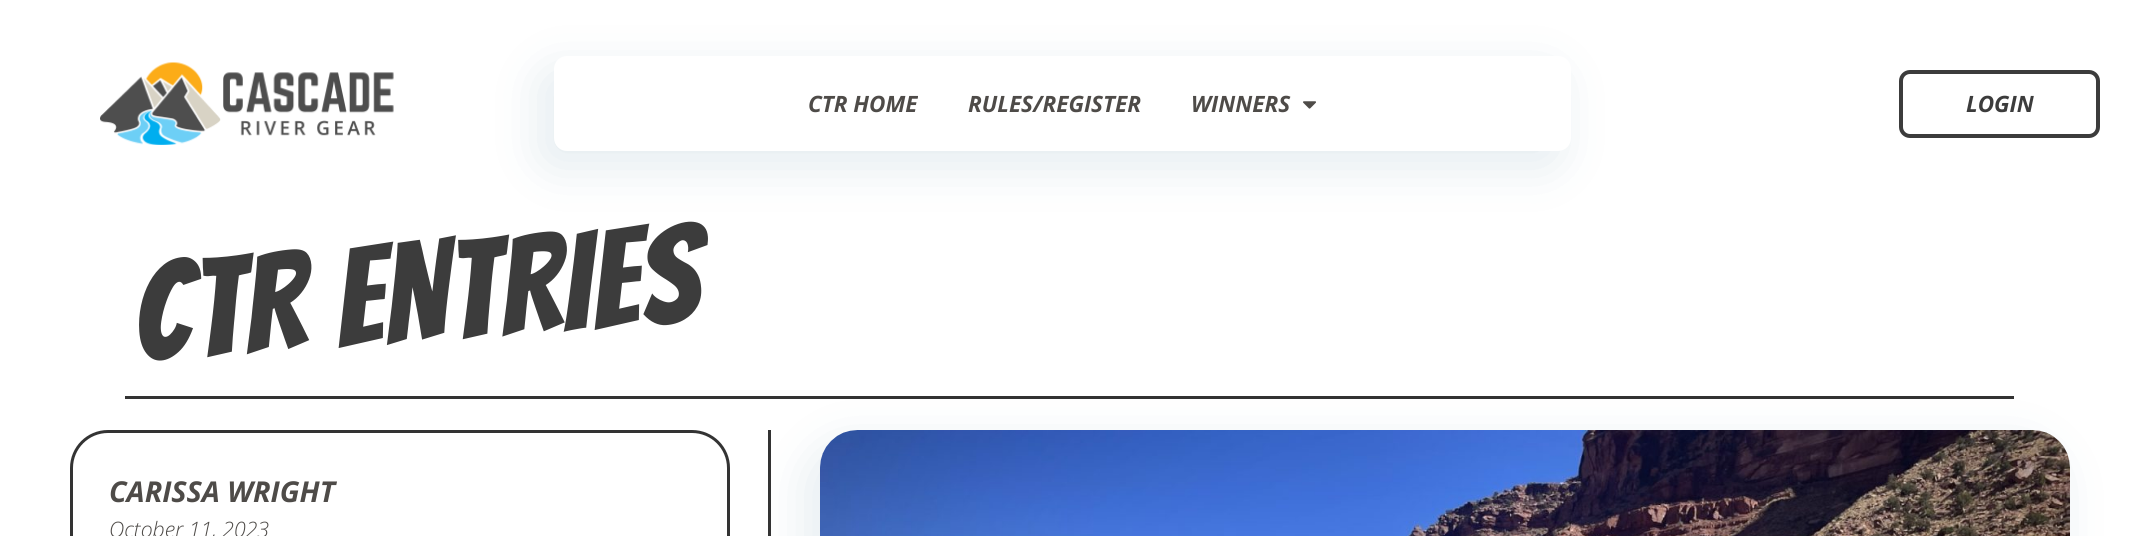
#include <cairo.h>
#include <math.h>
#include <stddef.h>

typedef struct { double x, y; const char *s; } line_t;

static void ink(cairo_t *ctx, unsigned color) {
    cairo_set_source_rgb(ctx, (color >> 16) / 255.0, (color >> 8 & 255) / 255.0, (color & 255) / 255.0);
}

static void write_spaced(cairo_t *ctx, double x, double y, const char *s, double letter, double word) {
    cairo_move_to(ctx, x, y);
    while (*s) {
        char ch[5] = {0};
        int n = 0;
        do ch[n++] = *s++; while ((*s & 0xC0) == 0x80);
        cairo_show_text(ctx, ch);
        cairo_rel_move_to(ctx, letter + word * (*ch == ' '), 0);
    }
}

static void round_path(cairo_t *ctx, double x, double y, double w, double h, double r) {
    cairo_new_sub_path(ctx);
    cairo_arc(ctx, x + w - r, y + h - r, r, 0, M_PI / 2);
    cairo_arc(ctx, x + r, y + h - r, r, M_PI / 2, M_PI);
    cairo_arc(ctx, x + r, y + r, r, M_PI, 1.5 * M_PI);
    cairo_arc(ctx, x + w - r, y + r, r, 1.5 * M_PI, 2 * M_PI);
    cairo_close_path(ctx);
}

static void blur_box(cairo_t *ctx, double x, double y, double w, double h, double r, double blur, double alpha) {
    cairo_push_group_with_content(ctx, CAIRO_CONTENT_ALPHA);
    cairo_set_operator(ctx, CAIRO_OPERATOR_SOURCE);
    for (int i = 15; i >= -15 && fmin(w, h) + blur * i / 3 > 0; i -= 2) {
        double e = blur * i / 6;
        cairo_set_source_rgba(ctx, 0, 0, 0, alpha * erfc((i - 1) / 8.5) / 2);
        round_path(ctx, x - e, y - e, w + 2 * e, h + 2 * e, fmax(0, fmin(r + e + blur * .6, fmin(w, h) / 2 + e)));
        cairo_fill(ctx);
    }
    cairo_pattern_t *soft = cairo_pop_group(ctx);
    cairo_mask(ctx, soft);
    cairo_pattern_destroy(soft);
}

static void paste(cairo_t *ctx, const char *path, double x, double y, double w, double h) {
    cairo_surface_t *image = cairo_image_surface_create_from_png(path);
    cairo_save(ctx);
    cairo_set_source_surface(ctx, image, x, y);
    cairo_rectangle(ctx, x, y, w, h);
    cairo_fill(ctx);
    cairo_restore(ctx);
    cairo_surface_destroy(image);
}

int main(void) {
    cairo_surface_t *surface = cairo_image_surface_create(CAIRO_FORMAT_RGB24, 2138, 536);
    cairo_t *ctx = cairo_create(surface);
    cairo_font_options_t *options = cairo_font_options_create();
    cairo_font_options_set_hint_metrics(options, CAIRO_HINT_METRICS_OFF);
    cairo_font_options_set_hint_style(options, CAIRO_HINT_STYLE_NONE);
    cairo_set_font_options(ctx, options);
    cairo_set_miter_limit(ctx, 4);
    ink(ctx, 0xFFFFFF);
    cairo_paint(ctx);
    paste(ctx, "media/1.png", 100, 62, 294, 83);
    ink(ctx, 0x004C71);
    blur_box(ctx, 541, 71, 1018, 95, 13, 25, 0.11);
    ink(ctx, 0xFFFFFF);
    round_path(ctx, 554, 56, 1017, 95, 13);
    cairo_fill(ctx);
    cairo_select_font_face(ctx, "Open Sans", CAIRO_FONT_SLANT_ITALIC, CAIRO_FONT_WEIGHT_BOLD);
    cairo_set_font_size(ctx, 22.5);
    ink(ctx, 0x4E4B48);
    {
        static const line_t items[] = {
            {808, 112, "CTR HOME"},
            {968, 112, "RULES/REGISTER"},
            {1191, 112, "WINNERS"},
        };
        for (size_t i = 0; i < sizeof items / sizeof *items; i++) {
            cairo_move_to(ctx, items[i].x, items[i].y);
            cairo_show_text(ctx, items[i].s);
        }
    }
    paste(ctx, "media/2.png", 1303, 101, 13, 8);
    round_path(ctx, 1901, 72, 197, 64, 9);
    ink(ctx, 0x3C3C3C);
    cairo_set_line_width(ctx, 4);
    cairo_stroke(ctx);
    cairo_move_to(ctx, 1966, 112);
    cairo_show_text(ctx, "LOGIN");
    ink(ctx, 0x333333);
    cairo_rectangle(ctx, 125, 396, 1889, 3);
    cairo_fill(ctx);
    cairo_select_font_face(ctx, "Bangers", CAIRO_FONT_SLANT_NORMAL, CAIRO_FONT_WEIGHT_NORMAL);
    cairo_set_font_size(ctx, 138.75);
    ink(ctx, 0x3C3C3C);
    cairo_save(ctx);
    cairo_translate(ctx, 136, 362);
    cairo_rotate(ctx, -4 * M_PI / 180);
    write_spaced(ctx, 0, 0, "CTR ENTRIES", 1.4, 0);
    cairo_restore(ctx);
    ink(ctx, 0x333333);
    cairo_rectangle(ctx, 768, 430, 3, 106);
    cairo_fill(ctx);
    round_path(ctx, 71.5, 431.5, 657, 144, 36.5);
    cairo_set_line_width(ctx, 3);
    cairo_stroke(ctx);
    cairo_select_font_face(ctx, "Open Sans", CAIRO_FONT_SLANT_ITALIC, CAIRO_FONT_WEIGHT_BOLD);
    cairo_set_font_size(ctx, 28.75);
    ink(ctx, 0x4E4B48);
    cairo_move_to(ctx, 109, 502);
    cairo_show_text(ctx, "CARISSA WRIGHT");
    cairo_select_font_face(ctx, "Open Sans Light", CAIRO_FONT_SLANT_ITALIC, CAIRO_FONT_WEIGHT_NORMAL);
    cairo_set_font_size(ctx, 21.25);
    cairo_move_to(ctx, 109, 537);
    cairo_show_text(ctx, "October 11, 2023");
    ink(ctx, 0x004C71);
    blur_box(ctx, 808, 445, 1250, 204, 38, 25, 0.11);
    paste(ctx, "media/3.png", 820, 430, 1250, 106);
    cairo_surface_write_to_png(surface, "image.png");
    cairo_font_options_destroy(options);
    cairo_destroy(ctx);
    cairo_surface_destroy(surface);
    return 0;
}
